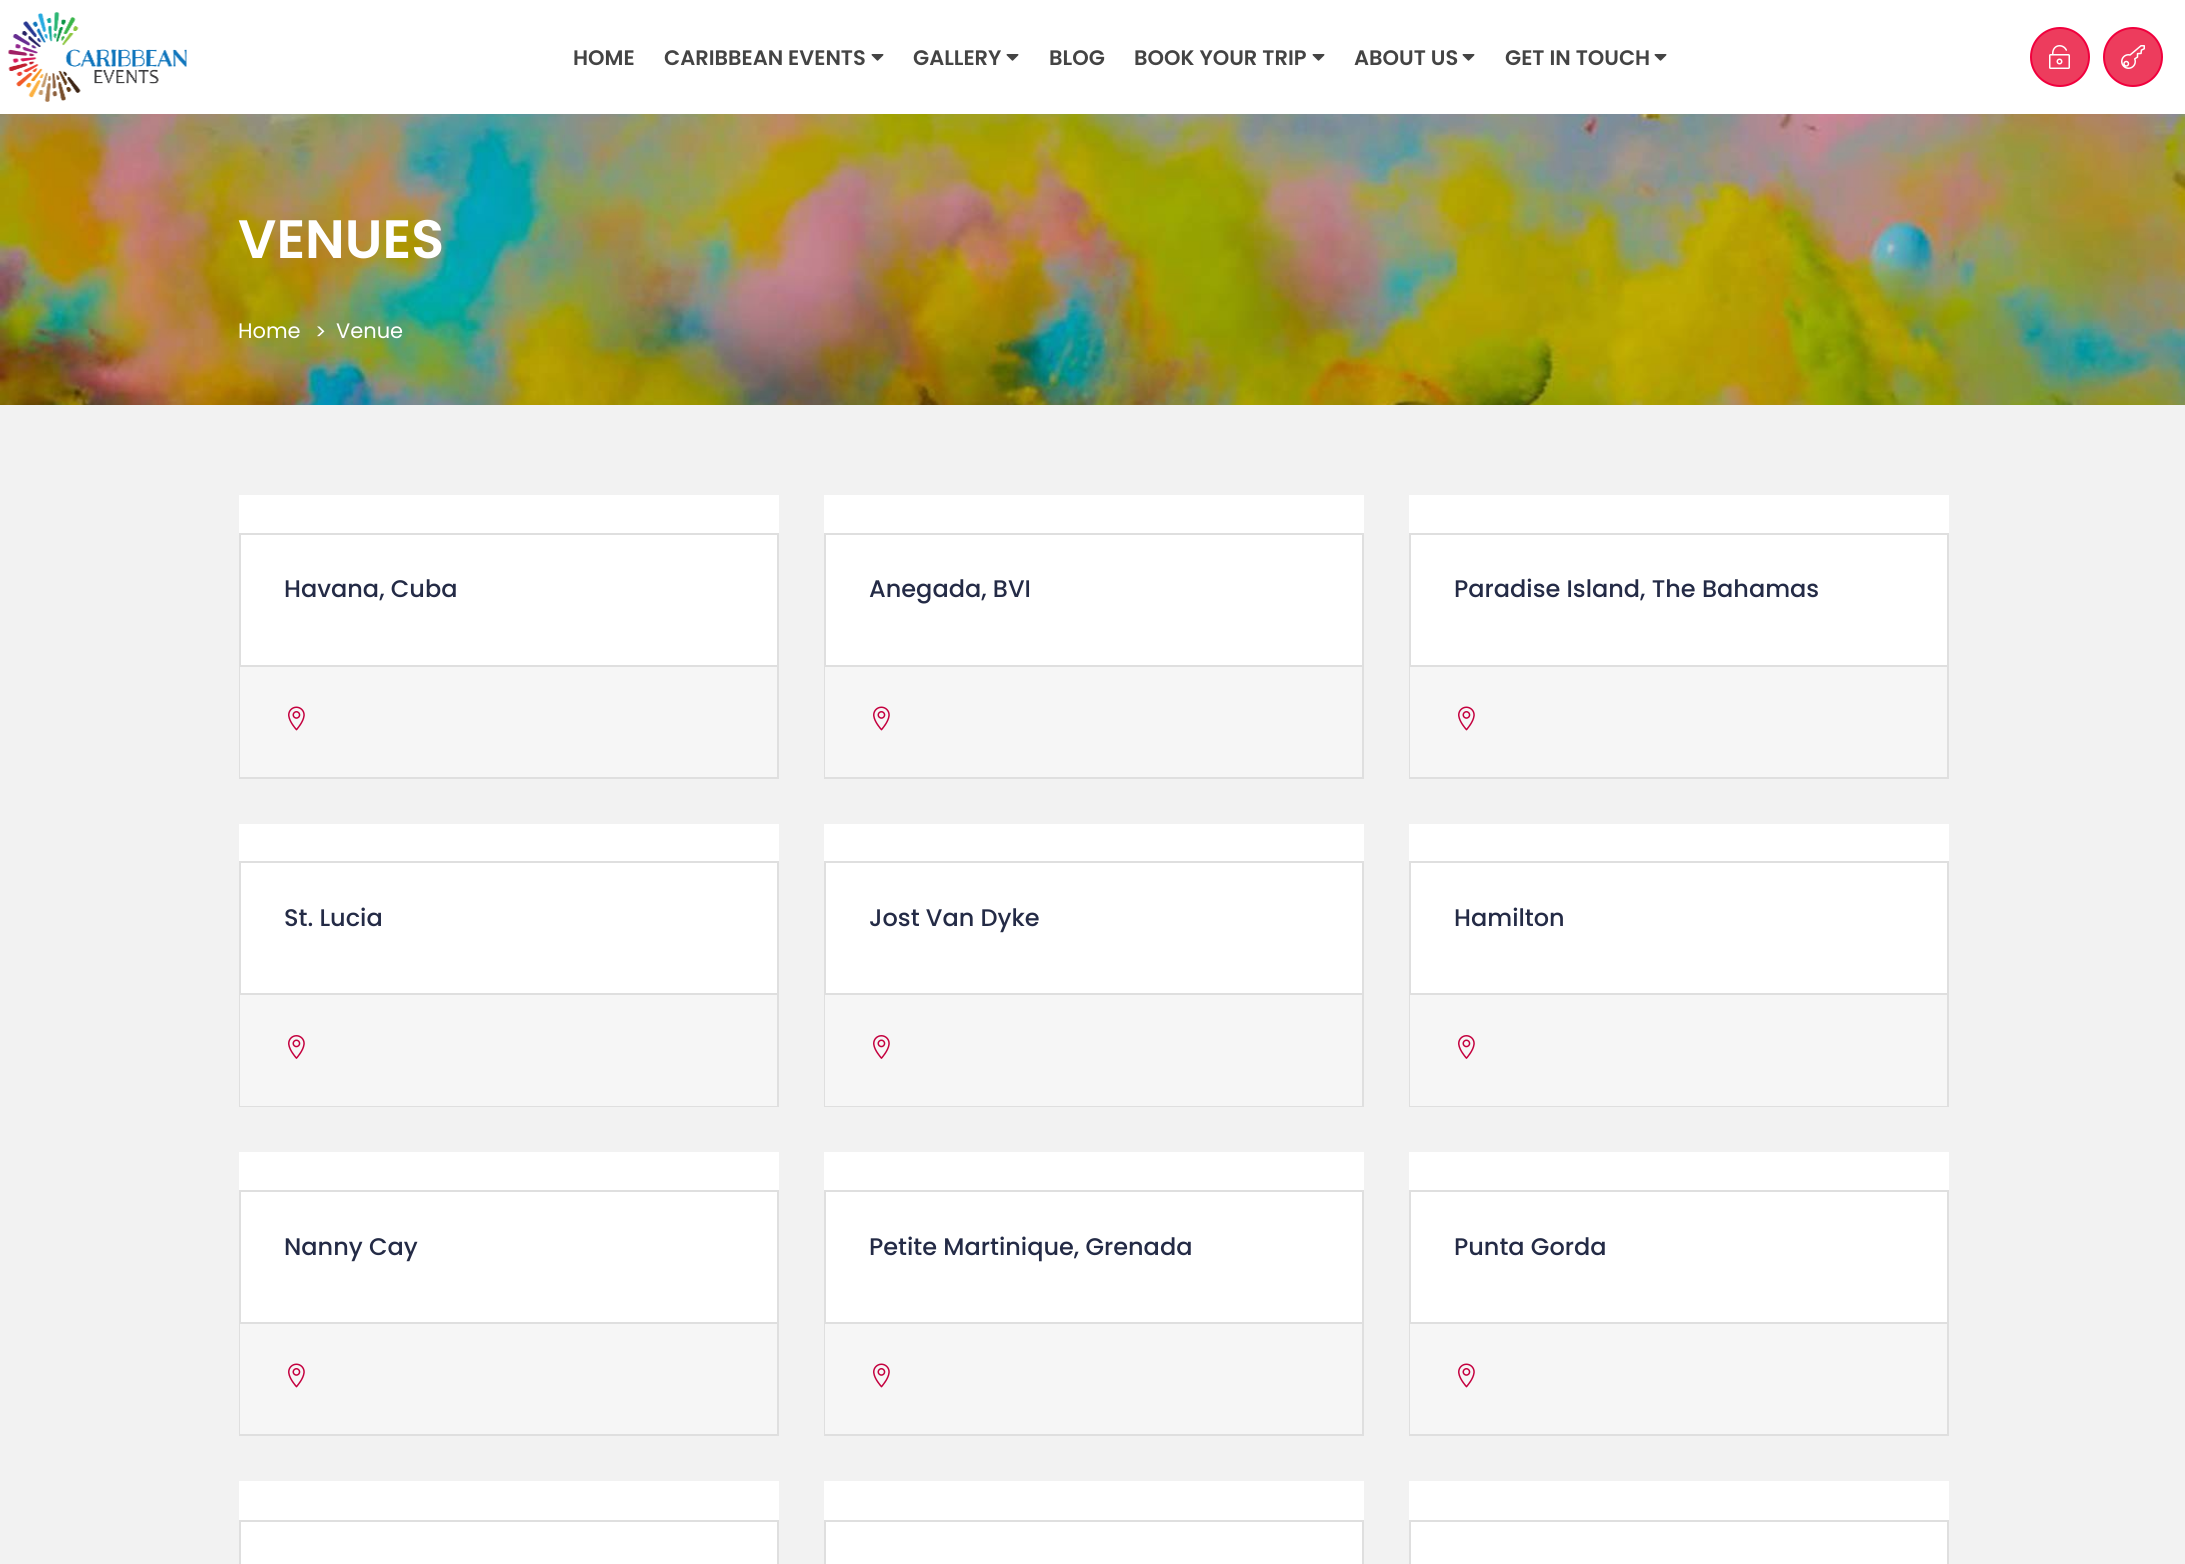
#include <cairo.h>
#include <math.h>
#include <stddef.h>

typedef struct { double x, y; const char *s; } line_t;

static void ink(cairo_t *ctx, unsigned color) {
    cairo_set_source_rgb(ctx, (color >> 16) / 255.0, (color >> 8 & 255) / 255.0, (color & 255) / 255.0);
}

static void paste(cairo_t *ctx, const char *path, double x, double y, double w, double h) {
    cairo_surface_t *image = cairo_image_surface_create_from_png(path);
    cairo_save(ctx);
    cairo_set_source_surface(ctx, image, x, y);
    cairo_rectangle(ctx, x, y, w, h);
    cairo_fill(ctx);
    cairo_restore(ctx);
    cairo_surface_destroy(image);
}

int main(void) {
    cairo_surface_t *surface = cairo_image_surface_create(CAIRO_FORMAT_RGB24, 2185, 1564);
    cairo_t *ctx = cairo_create(surface);
    cairo_font_options_t *options = cairo_font_options_create();
    cairo_font_options_set_hint_metrics(options, CAIRO_HINT_METRICS_OFF);
    cairo_font_options_set_hint_style(options, CAIRO_HINT_STYLE_NONE);
    cairo_set_font_options(ctx, options);
    cairo_set_miter_limit(ctx, 4);
    ink(ctx, 0xF2F2F2);
    cairo_paint(ctx);
    ink(ctx, 0xFFFFFF);
    cairo_rectangle(ctx, 0, 0, 2185, 114);
    cairo_fill(ctx);
    paste(ctx, "media/1.png", 8, 12, 179, 90);
    cairo_select_font_face(ctx, "Poppins SemiBold", CAIRO_FONT_SLANT_NORMAL, CAIRO_FONT_WEIGHT_NORMAL);
    cairo_set_font_size(ctx, 21);
    ink(ctx, 0x444444);
    cairo_move_to(ctx, 573, 65);
    cairo_show_text(ctx, "HOME");
    cairo_move_to(ctx, 664, 65);
    cairo_show_text(ctx, "CARIBBEAN EVENTS");
    paste(ctx, "media/2.png", 871, 54, 13, 7);
    cairo_move_to(ctx, 913, 65);
    cairo_show_text(ctx, "GALLERY");
    paste(ctx, "media/2.png", 1006, 54, 13, 7);
    cairo_move_to(ctx, 1049, 65);
    cairo_show_text(ctx, "BLOG");
    cairo_move_to(ctx, 1134, 65);
    cairo_show_text(ctx, "BOOK YOUR TRIP");
    paste(ctx, "media/2.png", 1312, 54, 13, 7);
    cairo_move_to(ctx, 1354, 65);
    cairo_show_text(ctx, "ABOUT US");
    paste(ctx, "media/2.png", 1462, 54, 13, 7);
    cairo_move_to(ctx, 1505, 65);
    cairo_show_text(ctx, "GET IN TOUCH");
    paste(ctx, "media/2.png", 1654, 54, 13, 7);
    ink(ctx, 0xED3C5D);
    cairo_arc(ctx, 2060, 57, 29, 0, 2 * M_PI);
    cairo_fill_preserve(ctx);
    ink(ctx, 0xF1003D);
    cairo_stroke(ctx);
    paste(ctx, "media/3.png", 2049, 45, 21, 24);
    ink(ctx, 0xED3C5D);
    cairo_arc(ctx, 2133, 57, 29, 0, 2 * M_PI);
    cairo_fill_preserve(ctx);
    ink(ctx, 0xF1003D);
    cairo_stroke(ctx);
    paste(ctx, "media/4.png", 2121, 45, 24, 24);
    paste(ctx, "media/5.png", 0, 114, 2185, 291);
    cairo_set_font_size(ctx, 54);
    ink(ctx, 0xFFFFFF);
    cairo_move_to(ctx, 238, 258);
    cairo_show_text(ctx, "VENUES");
    cairo_select_font_face(ctx, "Poppins", CAIRO_FONT_SLANT_NORMAL, CAIRO_FONT_WEIGHT_NORMAL);
    cairo_set_font_size(ctx, 21);
    {
        static const line_t items[] = {
            {238, 338, "Home"},
            {315, 339, ">"},
            {336, 338, "Venue"},
        };
        for (size_t i = 0; i < sizeof items / sizeof *items; i++) {
            cairo_move_to(ctx, items[i].x, items[i].y);
            cairo_show_text(ctx, items[i].s);
        }
    }
    cairo_rectangle(ctx, 239, 495, 540, 170);
    cairo_fill(ctx);
    cairo_rectangle(ctx, 240, 534, 538, 244);
    ink(ctx, 0xDFDFDF);
    cairo_stroke(ctx);
    cairo_select_font_face(ctx, "Poppins Medium", CAIRO_FONT_SLANT_NORMAL, CAIRO_FONT_WEIGHT_NORMAL);
    cairo_set_font_size(ctx, 24);
    ink(ctx, 0x242B46);
    cairo_move_to(ctx, 284, 597);
    cairo_show_text(ctx, "Havana, Cuba");
    ink(ctx, 0xF6F6F6);
    cairo_rectangle(ctx, 240, 667, 537, 110);
    cairo_fill(ctx);
    ink(ctx, 0xDFDFDF);
    cairo_rectangle(ctx, 240, 665, 537, 2);
    cairo_fill(ctx);
    paste(ctx, "media/6.png", 288, 706, 17, 25);
    ink(ctx, 0xFFFFFF);
    cairo_rectangle(ctx, 824, 495, 540, 170);
    cairo_fill(ctx);
    cairo_rectangle(ctx, 825, 534, 538, 244);
    ink(ctx, 0xDFDFDF);
    cairo_stroke(ctx);
    ink(ctx, 0x242B46);
    cairo_move_to(ctx, 869, 597);
    cairo_show_text(ctx, "Anegada, BVI");
    ink(ctx, 0xF6F6F6);
    cairo_rectangle(ctx, 825, 667, 537, 110);
    cairo_fill(ctx);
    ink(ctx, 0xDFDFDF);
    cairo_rectangle(ctx, 825, 665, 537, 2);
    cairo_fill(ctx);
    paste(ctx, "media/6.png", 873, 706, 17, 25);
    ink(ctx, 0xFFFFFF);
    cairo_rectangle(ctx, 1409, 495, 540, 170);
    cairo_fill(ctx);
    cairo_rectangle(ctx, 1410, 534, 538, 244);
    ink(ctx, 0xDFDFDF);
    cairo_stroke(ctx);
    ink(ctx, 0x242B46);
    cairo_move_to(ctx, 1454, 597);
    cairo_show_text(ctx, "Paradise Island, The Bahamas");
    ink(ctx, 0xF6F6F6);
    cairo_rectangle(ctx, 1410, 667, 537, 110);
    cairo_fill(ctx);
    ink(ctx, 0xDFDFDF);
    cairo_rectangle(ctx, 1410, 665, 537, 2);
    cairo_fill(ctx);
    paste(ctx, "media/6.png", 1458, 706, 17, 25);
    ink(ctx, 0xFFFFFF);
    cairo_rectangle(ctx, 239, 824, 540, 169);
    cairo_fill(ctx);
    cairo_rectangle(ctx, 240, 862, 538, 244);
    ink(ctx, 0xDFDFDF);
    cairo_stroke(ctx);
    ink(ctx, 0x242B46);
    cairo_move_to(ctx, 284, 926);
    cairo_show_text(ctx, "St. Lucia");
    ink(ctx, 0xF6F6F6);
    cairo_rectangle(ctx, 240, 995, 537, 111);
    cairo_fill(ctx);
    ink(ctx, 0xDFDFDF);
    cairo_rectangle(ctx, 240, 993, 537, 2);
    cairo_fill(ctx);
    paste(ctx, "media/7.png", 288, 1035, 17, 24);
    ink(ctx, 0xFFFFFF);
    cairo_rectangle(ctx, 824, 824, 540, 169);
    cairo_fill(ctx);
    cairo_rectangle(ctx, 825, 862, 538, 244);
    ink(ctx, 0xDFDFDF);
    cairo_stroke(ctx);
    ink(ctx, 0x242B46);
    cairo_move_to(ctx, 869, 926);
    cairo_show_text(ctx, "Jost Van Dyke");
    ink(ctx, 0xF6F6F6);
    cairo_rectangle(ctx, 825, 995, 537, 111);
    cairo_fill(ctx);
    ink(ctx, 0xDFDFDF);
    cairo_rectangle(ctx, 825, 993, 537, 2);
    cairo_fill(ctx);
    paste(ctx, "media/7.png", 873, 1035, 17, 24);
    ink(ctx, 0xFFFFFF);
    cairo_rectangle(ctx, 1409, 824, 540, 169);
    cairo_fill(ctx);
    cairo_rectangle(ctx, 1410, 862, 538, 244);
    ink(ctx, 0xDFDFDF);
    cairo_stroke(ctx);
    ink(ctx, 0x242B46);
    cairo_move_to(ctx, 1454, 926);
    cairo_show_text(ctx, "Hamilton");
    ink(ctx, 0xF6F6F6);
    cairo_rectangle(ctx, 1410, 995, 537, 111);
    cairo_fill(ctx);
    ink(ctx, 0xDFDFDF);
    cairo_rectangle(ctx, 1410, 993, 537, 2);
    cairo_fill(ctx);
    paste(ctx, "media/7.png", 1458, 1035, 17, 24);
    ink(ctx, 0xFFFFFF);
    cairo_rectangle(ctx, 239, 1152, 540, 170);
    cairo_fill(ctx);
    cairo_rectangle(ctx, 240, 1191, 538, 244);
    ink(ctx, 0xDFDFDF);
    cairo_stroke(ctx);
    ink(ctx, 0x242B46);
    cairo_move_to(ctx, 284, 1255);
    cairo_show_text(ctx, "Nanny Cay");
    ink(ctx, 0xF6F6F6);
    cairo_rectangle(ctx, 240, 1324, 537, 110);
    cairo_fill(ctx);
    ink(ctx, 0xDFDFDF);
    cairo_rectangle(ctx, 240, 1322, 537, 2);
    cairo_fill(ctx);
    paste(ctx, "media/6.png", 288, 1363, 17, 25);
    ink(ctx, 0xFFFFFF);
    cairo_rectangle(ctx, 824, 1152, 540, 170);
    cairo_fill(ctx);
    cairo_rectangle(ctx, 825, 1191, 538, 244);
    ink(ctx, 0xDFDFDF);
    cairo_stroke(ctx);
    ink(ctx, 0x242B46);
    cairo_move_to(ctx, 869, 1255);
    cairo_show_text(ctx, "Petite Martinique, Grenada");
    ink(ctx, 0xF6F6F6);
    cairo_rectangle(ctx, 825, 1324, 537, 110);
    cairo_fill(ctx);
    ink(ctx, 0xDFDFDF);
    cairo_rectangle(ctx, 825, 1322, 537, 2);
    cairo_fill(ctx);
    paste(ctx, "media/6.png", 873, 1363, 17, 25);
    ink(ctx, 0xFFFFFF);
    cairo_rectangle(ctx, 1409, 1152, 540, 170);
    cairo_fill(ctx);
    cairo_rectangle(ctx, 1410, 1191, 538, 244);
    ink(ctx, 0xDFDFDF);
    cairo_stroke(ctx);
    ink(ctx, 0x242B46);
    cairo_move_to(ctx, 1454, 1255);
    cairo_show_text(ctx, "Punta Gorda");
    ink(ctx, 0xF6F6F6);
    cairo_rectangle(ctx, 1410, 1324, 537, 110);
    cairo_fill(ctx);
    ink(ctx, 0xDFDFDF);
    cairo_rectangle(ctx, 1410, 1322, 537, 2);
    cairo_fill(ctx);
    paste(ctx, "media/6.png", 1458, 1363, 17, 25);
    ink(ctx, 0xFFFFFF);
    cairo_rectangle(ctx, 239, 1481, 540, 83);
    cairo_fill(ctx);
    cairo_rectangle(ctx, 240, 1521, 538, 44);
    ink(ctx, 0xDFDFDF);
    cairo_stroke(ctx);
    ink(ctx, 0xFFFFFF);
    cairo_rectangle(ctx, 824, 1481, 540, 83);
    cairo_fill(ctx);
    cairo_rectangle(ctx, 825, 1521, 538, 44);
    ink(ctx, 0xDFDFDF);
    cairo_stroke(ctx);
    ink(ctx, 0xFFFFFF);
    cairo_rectangle(ctx, 1409, 1481, 540, 83);
    cairo_fill(ctx);
    cairo_rectangle(ctx, 1410, 1521, 538, 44);
    ink(ctx, 0xDFDFDF);
    cairo_stroke(ctx);
    cairo_surface_write_to_png(surface, "image.png");
    cairo_font_options_destroy(options);
    cairo_destroy(ctx);
    cairo_surface_destroy(surface);
    return 0;
}
